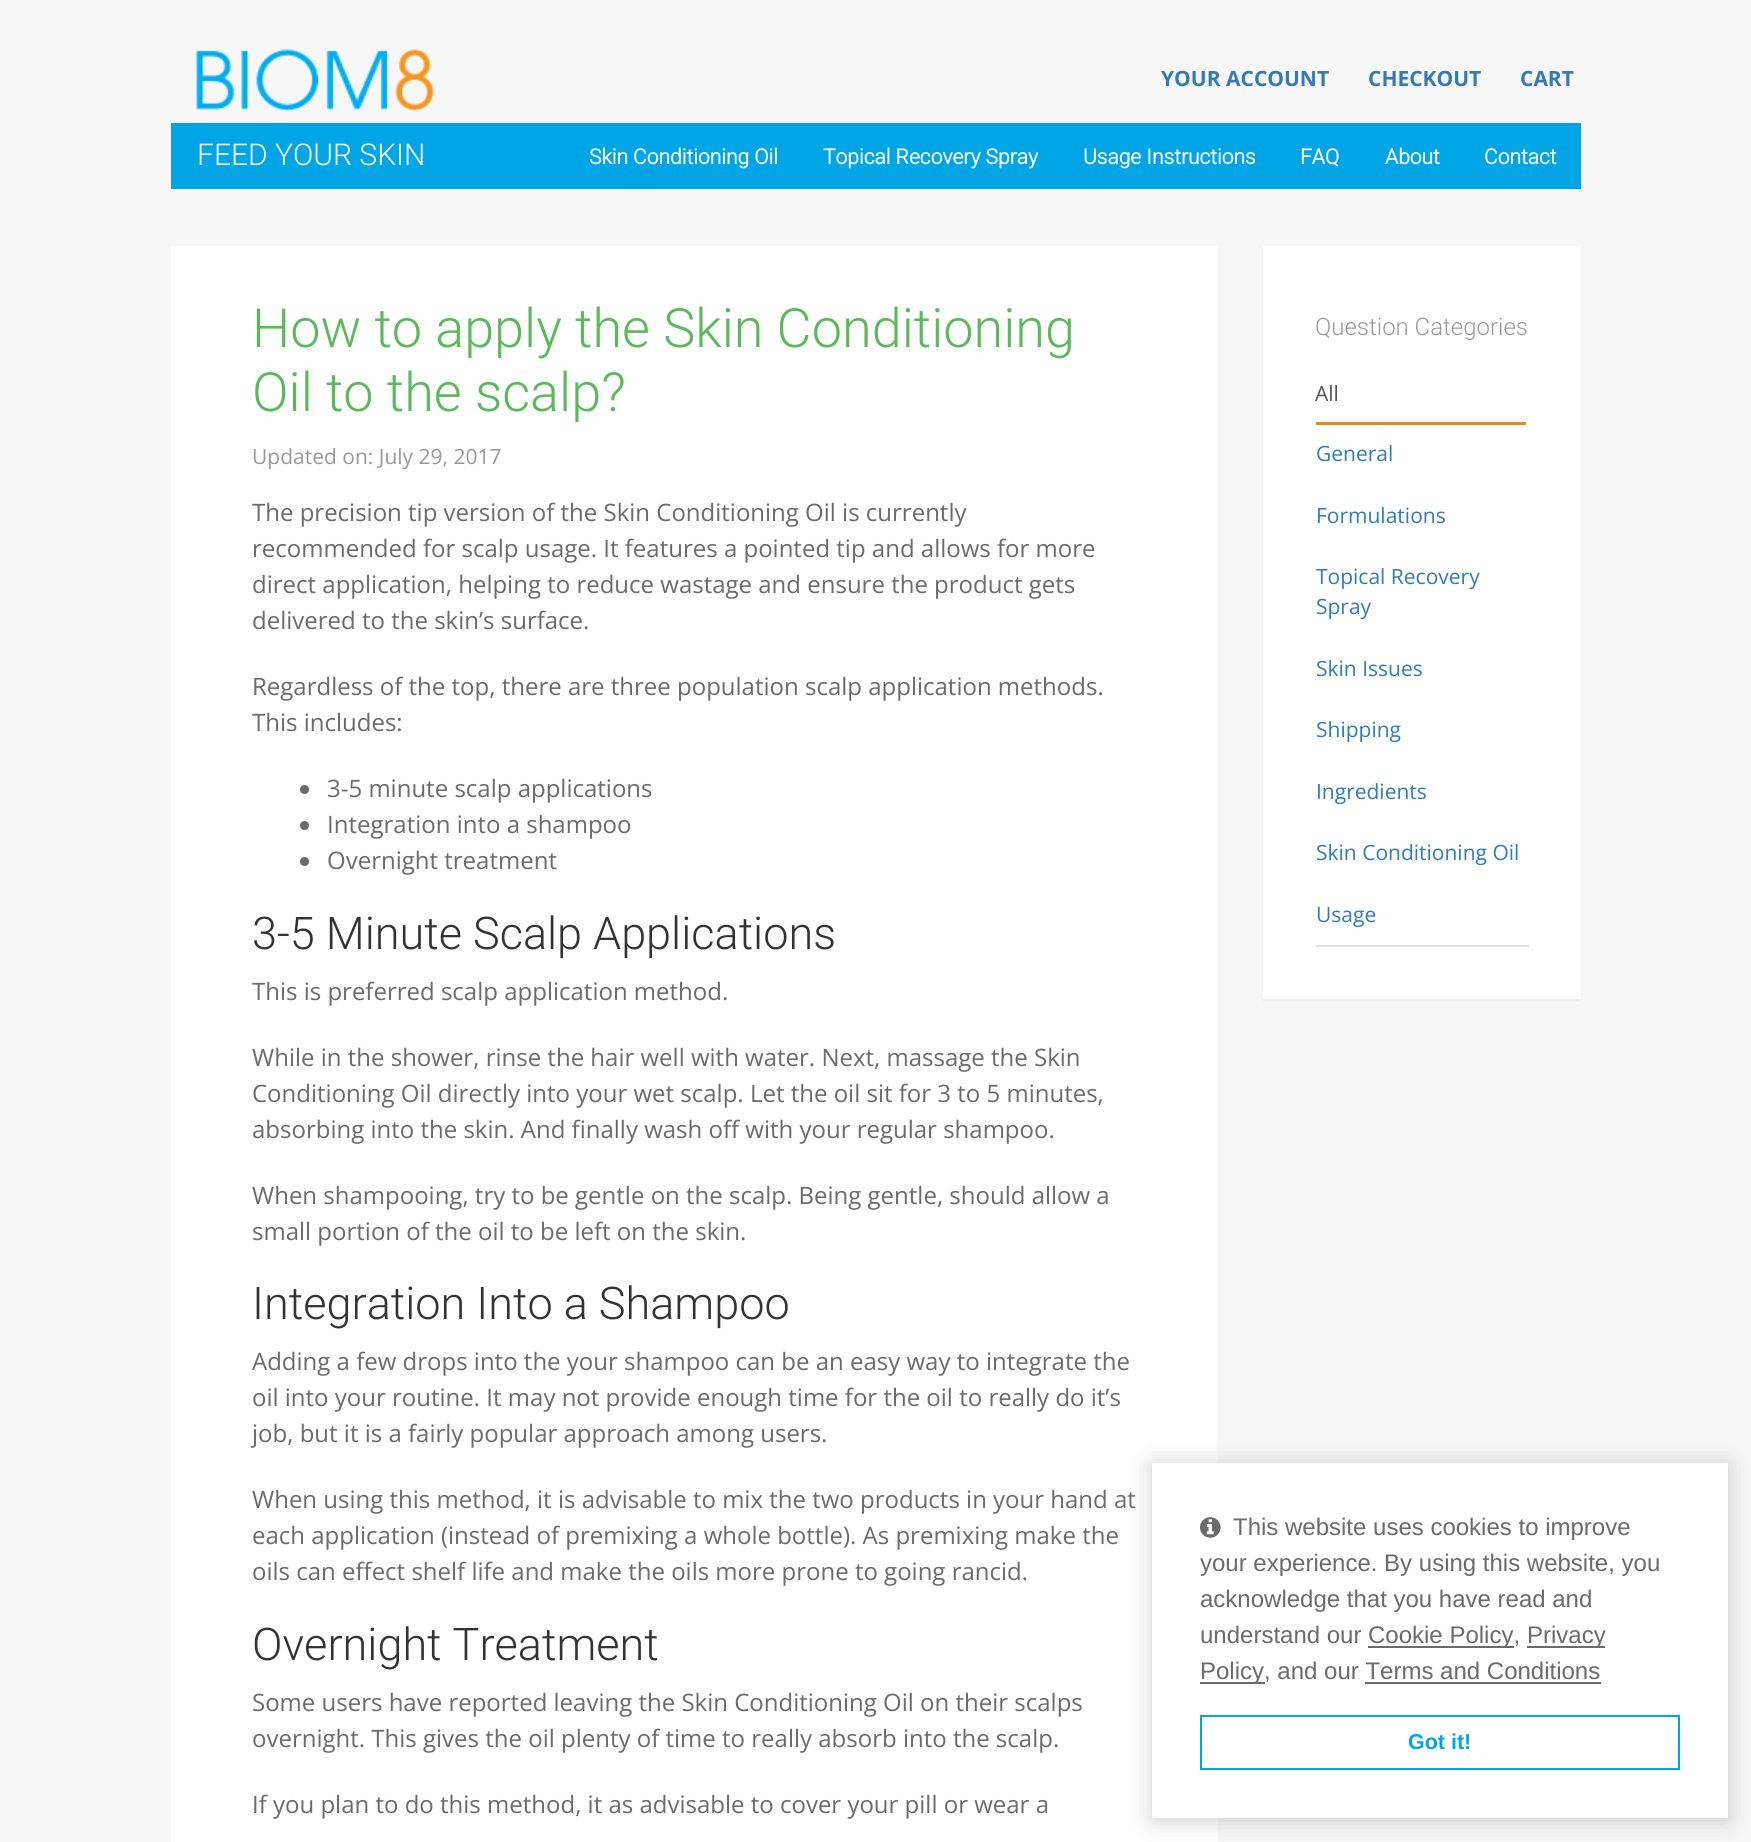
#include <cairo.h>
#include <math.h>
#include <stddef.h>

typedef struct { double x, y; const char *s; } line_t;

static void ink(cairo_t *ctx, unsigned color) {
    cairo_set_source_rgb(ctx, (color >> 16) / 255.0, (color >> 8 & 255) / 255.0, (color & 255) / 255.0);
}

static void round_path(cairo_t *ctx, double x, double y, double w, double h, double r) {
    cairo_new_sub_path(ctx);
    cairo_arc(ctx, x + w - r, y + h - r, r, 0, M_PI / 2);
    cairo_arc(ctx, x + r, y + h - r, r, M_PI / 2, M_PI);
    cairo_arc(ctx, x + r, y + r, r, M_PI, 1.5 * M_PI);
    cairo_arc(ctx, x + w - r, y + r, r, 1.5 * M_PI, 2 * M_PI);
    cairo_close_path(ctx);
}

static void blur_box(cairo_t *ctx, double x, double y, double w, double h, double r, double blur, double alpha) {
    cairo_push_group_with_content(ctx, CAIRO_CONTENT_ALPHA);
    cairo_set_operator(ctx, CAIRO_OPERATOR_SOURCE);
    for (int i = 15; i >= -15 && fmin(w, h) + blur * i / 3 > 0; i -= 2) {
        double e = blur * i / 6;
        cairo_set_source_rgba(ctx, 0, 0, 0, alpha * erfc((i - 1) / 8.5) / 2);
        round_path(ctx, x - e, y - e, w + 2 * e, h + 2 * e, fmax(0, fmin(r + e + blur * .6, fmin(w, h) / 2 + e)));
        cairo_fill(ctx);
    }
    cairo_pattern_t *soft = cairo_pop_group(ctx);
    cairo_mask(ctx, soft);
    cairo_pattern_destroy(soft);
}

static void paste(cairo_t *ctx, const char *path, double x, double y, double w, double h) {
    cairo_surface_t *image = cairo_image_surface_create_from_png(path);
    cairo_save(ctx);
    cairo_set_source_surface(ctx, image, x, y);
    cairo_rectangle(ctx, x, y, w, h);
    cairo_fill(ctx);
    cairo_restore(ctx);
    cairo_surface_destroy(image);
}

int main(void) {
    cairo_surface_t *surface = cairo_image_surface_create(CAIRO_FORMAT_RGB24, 1751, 1842);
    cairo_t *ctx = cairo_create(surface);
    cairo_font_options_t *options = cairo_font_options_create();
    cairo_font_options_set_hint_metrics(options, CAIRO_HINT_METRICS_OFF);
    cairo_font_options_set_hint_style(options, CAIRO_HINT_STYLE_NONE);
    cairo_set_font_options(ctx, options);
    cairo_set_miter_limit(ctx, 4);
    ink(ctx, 0xF7F7F7);
    cairo_paint(ctx);
    paste(ctx, "media/1.png", 196, 49, 238, 63);
    cairo_select_font_face(ctx, "Open Sans", CAIRO_FONT_SLANT_NORMAL, CAIRO_FONT_WEIGHT_BOLD);
    cairo_set_font_size(ctx, 21);
    ink(ctx, 0x337AB7);
    {
        static const line_t items[] = {
            {1161, 86, "YOUR ACCOUNT"},
            {1368, 86, "CHECKOUT"},
            {1520, 86, "CART"},
        };
        for (size_t i = 0; i < sizeof items / sizeof *items; i++) {
            cairo_move_to(ctx, items[i].x, items[i].y);
            cairo_show_text(ctx, items[i].s);
        }
    }
    ink(ctx, 0x00A5E6);
    cairo_rectangle(ctx, 171, 123, 1410, 66);
    cairo_fill(ctx);
    cairo_select_font_face(ctx, "Roboto Light", CAIRO_FONT_SLANT_NORMAL, CAIRO_FONT_WEIGHT_NORMAL);
    cairo_set_font_size(ctx, 30);
    ink(ctx, 0xFFFFFF);
    cairo_move_to(ctx, 197, 165);
    cairo_show_text(ctx, "FEED YOUR SKIN");
    cairo_select_font_face(ctx, "Roboto", CAIRO_FONT_SLANT_NORMAL, CAIRO_FONT_WEIGHT_BOLD);
    cairo_set_font_size(ctx, 21);
    {
        static const line_t items[] = {
            {589, 164, "Skin Conditioning Oil"},
            {823, 164, "Topical Recovery Spray"},
            {1083, 164, "Usage Instructions"},
            {1300, 164, "FAQ"},
            {1385, 164, "About"},
            {1484, 164, "Contact"},
        };
        for (size_t i = 0; i < sizeof items / sizeof *items; i++) {
            cairo_move_to(ctx, items[i].x, items[i].y);
            cairo_show_text(ctx, items[i].s);
        }
    }
    cairo_rectangle(ctx, 171, 246, 1047, 1596);
    cairo_fill(ctx);
    cairo_select_font_face(ctx, "Roboto Light", CAIRO_FONT_SLANT_NORMAL, CAIRO_FONT_WEIGHT_NORMAL);
    cairo_set_font_size(ctx, 54);
    ink(ctx, 0x5CB85C);
    cairo_move_to(ctx, 252, 347);
    cairo_show_text(ctx, "How to apply the Skin Conditioning");
    cairo_move_to(ctx, 252, 411);
    cairo_show_text(ctx, "Oil to the scalp?");
    cairo_select_font_face(ctx, "Open Sans", CAIRO_FONT_SLANT_NORMAL, CAIRO_FONT_WEIGHT_NORMAL);
    cairo_set_font_size(ctx, 21);
    ink(ctx, 0x999999);
    cairo_move_to(ctx, 252, 464);
    cairo_show_text(ctx, "Updated on: July 29, 2017");
    cairo_set_font_size(ctx, 24);
    ink(ctx, 0x6B6B6B);
    {
        static const line_t items[] = {
            {252, 521, "The precision tip version of the Skin Conditioning Oil is currently"},
            {252, 557, "recommended for scalp usage. It features a pointed tip and allows for more"},
            {252, 593, "direct application, helping to reduce wastage and ensure the product gets"},
            {252, 629, "delivered to the skin’s surface."},
            {252, 695, "Regardless of the top, there are three population scalp application methods."},
            {252, 731, "This includes:"},
        };
        for (size_t i = 0; i < sizeof items / sizeof *items; i++) {
            cairo_move_to(ctx, items[i].x, items[i].y);
            cairo_show_text(ctx, items[i].s);
        }
    }
    cairo_new_path(ctx);
    cairo_arc(ctx, 304.5, 789.5, 4.5, 0, 2 * M_PI);
    cairo_fill(ctx);
    cairo_move_to(ctx, 327, 797);
    cairo_show_text(ctx, "3-5 minute scalp applications");
    cairo_new_path(ctx);
    cairo_arc(ctx, 304.5, 825.5, 4.5, 0, 2 * M_PI);
    cairo_fill(ctx);
    cairo_move_to(ctx, 327, 833);
    cairo_show_text(ctx, "Integration into a shampoo");
    cairo_new_path(ctx);
    cairo_arc(ctx, 304.5, 861.5, 4.5, 0, 2 * M_PI);
    cairo_fill(ctx);
    cairo_move_to(ctx, 327, 869);
    cairo_show_text(ctx, "Overnight treatment");
    cairo_select_font_face(ctx, "Roboto Light", CAIRO_FONT_SLANT_NORMAL, CAIRO_FONT_WEIGHT_NORMAL);
    cairo_set_font_size(ctx, 45);
    ink(ctx, 0x333333);
    cairo_move_to(ctx, 252, 949);
    cairo_show_text(ctx, "3-5 Minute Scalp Applications");
    cairo_select_font_face(ctx, "Open Sans", CAIRO_FONT_SLANT_NORMAL, CAIRO_FONT_WEIGHT_NORMAL);
    cairo_set_font_size(ctx, 24);
    ink(ctx, 0x6B6B6B);
    {
        static const line_t items[] = {
            {252, 1000, "This is preferred scalp application method."},
            {252, 1066, "While in the shower, rinse the hair well with water. Next, massage the Skin"},
            {252, 1102, "Conditioning Oil directly into your wet scalp. Let the oil sit for 3 to 5 minutes,"},
            {252, 1138, "absorbing into the skin. And finally wash off with your regular shampoo."},
            {252, 1204, "When shampooing, try to be gentle on the scalp. Being gentle, should allow a"},
            {252, 1240, "small portion of the oil to be left on the skin."},
        };
        for (size_t i = 0; i < sizeof items / sizeof *items; i++) {
            cairo_move_to(ctx, items[i].x, items[i].y);
            cairo_show_text(ctx, items[i].s);
        }
    }
    cairo_select_font_face(ctx, "Roboto Light", CAIRO_FONT_SLANT_NORMAL, CAIRO_FONT_WEIGHT_NORMAL);
    cairo_set_font_size(ctx, 45);
    ink(ctx, 0x333333);
    cairo_move_to(ctx, 252, 1319);
    cairo_show_text(ctx, "Integration Into a Shampoo");
    cairo_select_font_face(ctx, "Open Sans", CAIRO_FONT_SLANT_NORMAL, CAIRO_FONT_WEIGHT_NORMAL);
    cairo_set_font_size(ctx, 24);
    ink(ctx, 0x6B6B6B);
    {
        static const line_t items[] = {
            {252, 1370, "Adding a few drops into the your shampoo can be an easy way to integrate the"},
            {252, 1406, "oil into your routine. It may not provide enough time for the oil to really do it’s"},
            {252, 1442, "job, but it is a fairly popular approach among users."},
            {252, 1508, "When using this method, it is advisable to mix the two products in your hand at"},
            {252, 1544, "each application (instead of premixing a whole bottle). As premixing make the"},
            {252, 1580, "oils can effect shelf life and make the oils more prone to going rancid."},
        };
        for (size_t i = 0; i < sizeof items / sizeof *items; i++) {
            cairo_move_to(ctx, items[i].x, items[i].y);
            cairo_show_text(ctx, items[i].s);
        }
    }
    cairo_select_font_face(ctx, "Roboto Light", CAIRO_FONT_SLANT_NORMAL, CAIRO_FONT_WEIGHT_NORMAL);
    cairo_set_font_size(ctx, 45);
    ink(ctx, 0x333333);
    cairo_move_to(ctx, 252, 1660);
    cairo_show_text(ctx, "Overnight Treatment");
    cairo_select_font_face(ctx, "Open Sans", CAIRO_FONT_SLANT_NORMAL, CAIRO_FONT_WEIGHT_NORMAL);
    cairo_set_font_size(ctx, 24);
    ink(ctx, 0x6B6B6B);
    {
        static const line_t items[] = {
            {252, 1711, "Some users have reported leaving the Skin Conditioning Oil on their scalps"},
            {252, 1747, "overnight. This gives the oil plenty of time to really absorb into the scalp."},
            {252, 1813, "If you plan to do this method, it as advisable to cover your pill or wear a"},
        };
        for (size_t i = 0; i < sizeof items / sizeof *items; i++) {
            cairo_move_to(ctx, items[i].x, items[i].y);
            cairo_show_text(ctx, items[i].s);
        }
    }
    ink(ctx, 0x000000);
    blur_box(ctx, 1263, 248, 318, 753, 0, 1, 0.05);
    ink(ctx, 0xFFFFFF);
    cairo_rectangle(ctx, 1263, 246, 318, 753);
    cairo_fill(ctx);
    cairo_select_font_face(ctx, "Roboto Light", CAIRO_FONT_SLANT_NORMAL, CAIRO_FONT_WEIGHT_NORMAL);
    ink(ctx, 0x999999);
    cairo_move_to(ctx, 1315, 335);
    cairo_show_text(ctx, "Question Categories");
    ink(ctx, 0xDDDDDD);
    cairo_rectangle(ctx, 1316, 945, 213, 2);
    cairo_fill(ctx);
    ink(ctx, 0xE2891F);
    cairo_rectangle(ctx, 1316, 422, 210, 3);
    cairo_fill(ctx);
    cairo_select_font_face(ctx, "Open Sans", CAIRO_FONT_SLANT_NORMAL, CAIRO_FONT_WEIGHT_NORMAL);
    cairo_set_font_size(ctx, 21);
    ink(ctx, 0x555555);
    cairo_move_to(ctx, 1315, 401);
    cairo_show_text(ctx, "All");
    ink(ctx, 0x337AB7);
    {
        static const line_t items[] = {
            {1316, 461, "General"},
            {1316, 523, "Formulations"},
            {1316, 584, "Topical Recovery"},
            {1316, 614, "Spray"},
            {1316, 676, "Skin Issues"},
            {1316, 737, "Shipping"},
            {1316, 799, "Ingredients"},
            {1316, 860, "Skin Conditioning Oil"},
            {1316, 922, "Usage"},
        };
        for (size_t i = 0; i < sizeof items / sizeof *items; i++) {
            cairo_move_to(ctx, items[i].x, items[i].y);
            cairo_show_text(ctx, items[i].s);
        }
    }
    ink(ctx, 0x000000);
    blur_box(ctx, 1152, 1464, 576, 356, 0, 11, 0.2);
    ink(ctx, 0xFFFFFF);
    cairo_rectangle(ctx, 1152, 1463, 576, 355);
    cairo_fill(ctx);
    paste(ctx, "media/2.png", 1200, 1517, 21, 21);
    cairo_select_font_face(ctx, "Liberation Sans", CAIRO_FONT_SLANT_NORMAL, CAIRO_FONT_WEIGHT_NORMAL);
    cairo_set_font_size(ctx, 24);
    ink(ctx, 0x6B6B6B);
    {
        static const line_t items[] = {
            {1233, 1535, "This website uses cookies to improve"},
            {1200, 1571, "your experience. By using this website, you"},
            {1200, 1607, "acknowledge that you have read and"},
            {1200, 1643, "understand our"},
        };
        for (size_t i = 0; i < sizeof items / sizeof *items; i++) {
            cairo_move_to(ctx, items[i].x, items[i].y);
            cairo_show_text(ctx, items[i].s);
        }
    }
    cairo_rectangle(ctx, 1368, 1646, 146, 2);
    cairo_fill(ctx);
    cairo_move_to(ctx, 1368, 1643);
    cairo_show_text(ctx, "Cookie Policy,");
    cairo_rectangle(ctx, 1527, 1646, 78, 2);
    cairo_fill(ctx);
    cairo_move_to(ctx, 1527, 1643);
    cairo_show_text(ctx, "Privacy");
    cairo_rectangle(ctx, 1200, 1682, 65, 2);
    cairo_fill(ctx);
    cairo_move_to(ctx, 1200, 1679);
    cairo_show_text(ctx, "Policy, and our Terms and Conditions");
    cairo_rectangle(ctx, 1365, 1682, 236, 2);
    cairo_fill(ctx);
    cairo_rectangle(ctx, 1201, 1716, 478, 53);
    ink(ctx, 0x00A5E6);
    cairo_stroke(ctx);
    cairo_select_font_face(ctx, "Liberation Sans", CAIRO_FONT_SLANT_NORMAL, CAIRO_FONT_WEIGHT_BOLD);
    cairo_set_font_size(ctx, 21.5);
    cairo_move_to(ctx, 1408, 1749);
    cairo_show_text(ctx, "Got it!");
    cairo_surface_write_to_png(surface, "image.png");
    cairo_font_options_destroy(options);
    cairo_destroy(ctx);
    cairo_surface_destroy(surface);
    return 0;
}
